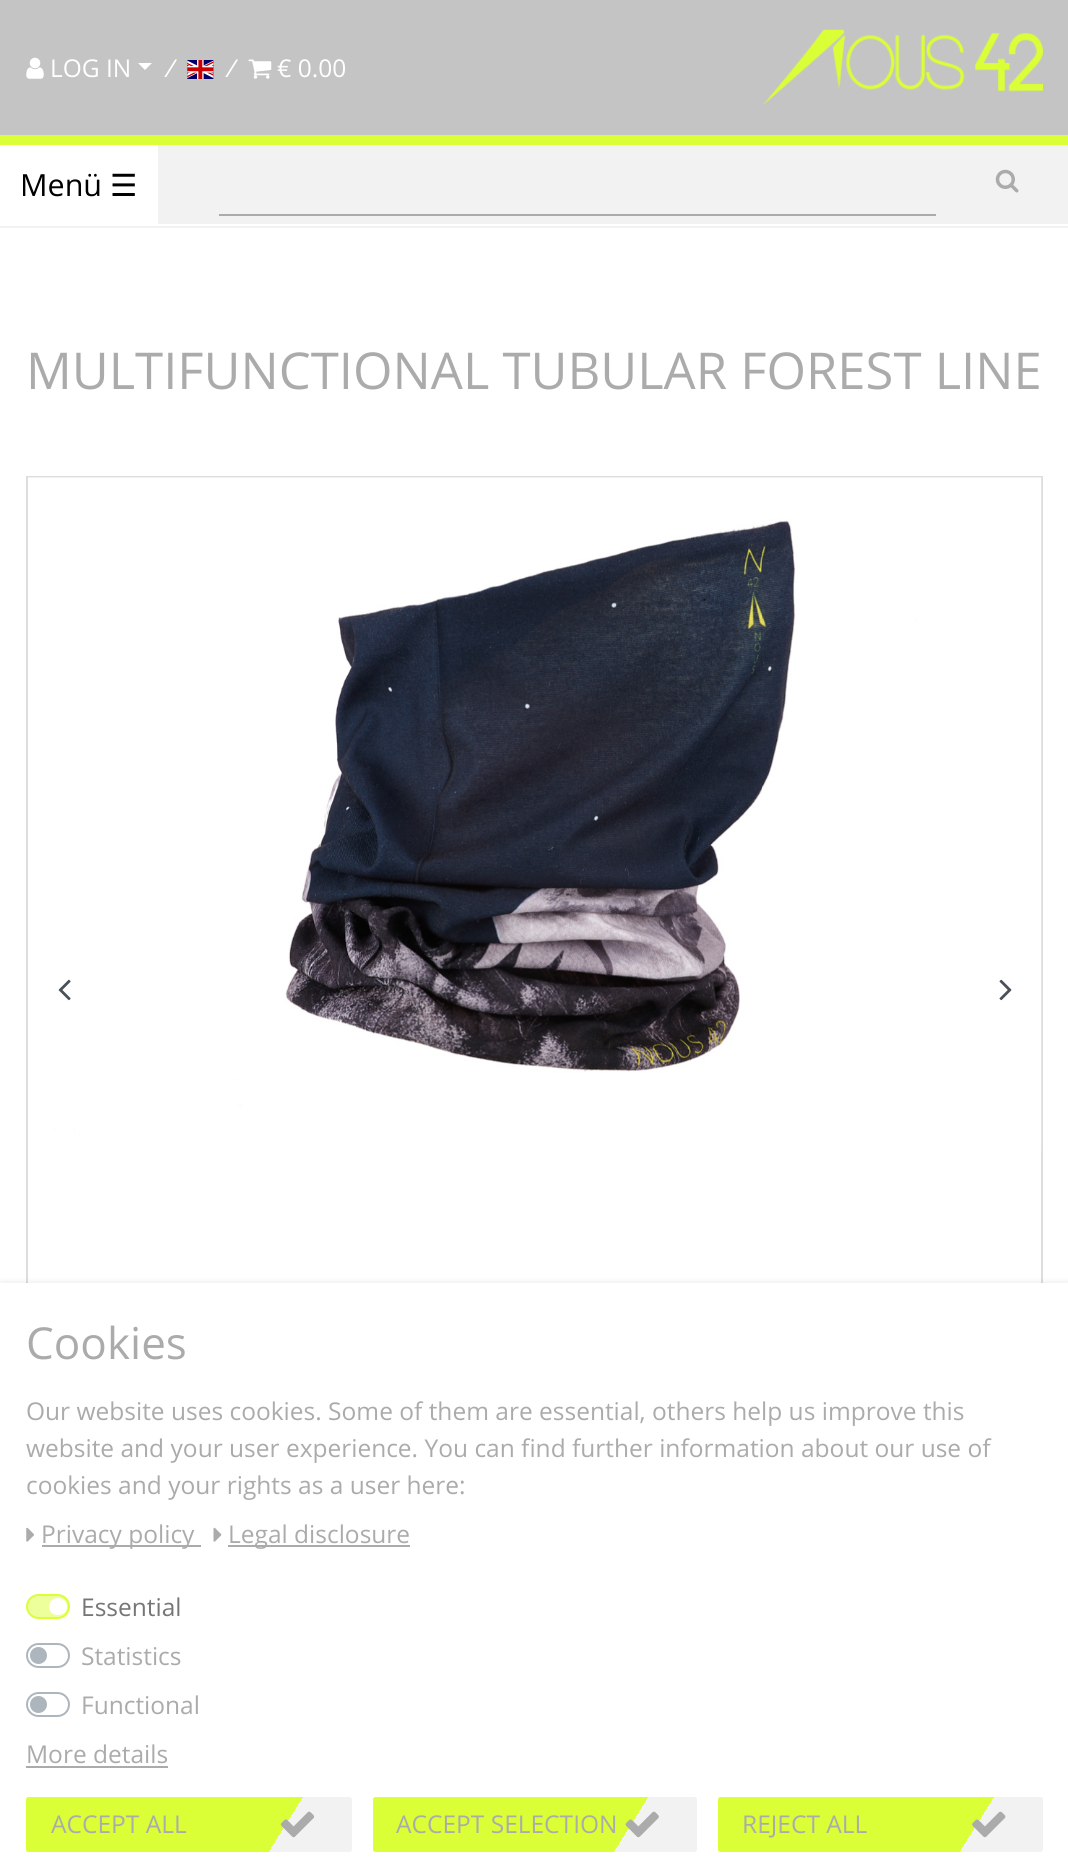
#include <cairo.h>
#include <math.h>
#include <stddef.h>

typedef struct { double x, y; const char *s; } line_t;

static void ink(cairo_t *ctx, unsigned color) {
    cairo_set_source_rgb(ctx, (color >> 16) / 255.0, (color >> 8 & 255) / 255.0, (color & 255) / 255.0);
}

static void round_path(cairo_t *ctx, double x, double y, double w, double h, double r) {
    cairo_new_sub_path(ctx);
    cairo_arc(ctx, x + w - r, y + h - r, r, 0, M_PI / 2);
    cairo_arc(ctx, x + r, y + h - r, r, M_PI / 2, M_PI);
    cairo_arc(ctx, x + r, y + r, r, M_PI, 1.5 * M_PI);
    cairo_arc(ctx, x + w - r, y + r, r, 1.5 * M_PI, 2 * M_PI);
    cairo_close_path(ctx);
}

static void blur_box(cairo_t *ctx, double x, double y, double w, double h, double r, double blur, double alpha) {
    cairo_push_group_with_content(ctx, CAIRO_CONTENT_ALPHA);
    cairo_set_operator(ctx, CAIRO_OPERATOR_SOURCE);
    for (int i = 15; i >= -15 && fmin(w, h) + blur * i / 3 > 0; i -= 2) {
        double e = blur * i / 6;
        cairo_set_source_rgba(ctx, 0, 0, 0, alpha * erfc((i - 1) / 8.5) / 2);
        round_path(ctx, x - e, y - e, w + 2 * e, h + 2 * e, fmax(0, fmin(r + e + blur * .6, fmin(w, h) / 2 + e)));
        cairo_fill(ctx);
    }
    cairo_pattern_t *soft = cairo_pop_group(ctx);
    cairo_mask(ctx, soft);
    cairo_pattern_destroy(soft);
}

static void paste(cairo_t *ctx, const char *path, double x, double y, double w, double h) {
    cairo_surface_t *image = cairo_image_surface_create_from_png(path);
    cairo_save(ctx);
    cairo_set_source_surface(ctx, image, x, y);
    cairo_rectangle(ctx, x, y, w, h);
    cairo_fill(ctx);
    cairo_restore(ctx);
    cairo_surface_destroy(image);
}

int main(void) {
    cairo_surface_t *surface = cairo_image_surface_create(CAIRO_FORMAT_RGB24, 1068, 1875);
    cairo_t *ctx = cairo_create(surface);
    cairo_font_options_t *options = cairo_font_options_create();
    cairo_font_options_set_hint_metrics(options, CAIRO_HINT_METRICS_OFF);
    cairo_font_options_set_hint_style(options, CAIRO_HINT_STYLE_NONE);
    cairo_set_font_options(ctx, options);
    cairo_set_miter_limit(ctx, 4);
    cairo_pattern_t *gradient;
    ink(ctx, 0xFFFFFF);
    cairo_paint(ctx);
    ink(ctx, 0xC4C4C4);
    cairo_rectangle(ctx, 0, 0, 1068, 135);
    cairo_fill(ctx);
    paste(ctx, "media/1.png", 26, 57, 18, 22);
    cairo_select_font_face(ctx, "Open Sans", CAIRO_FONT_SLANT_NORMAL, CAIRO_FONT_WEIGHT_NORMAL);
    cairo_set_font_size(ctx, 24.5);
    ink(ctx, 0xFFFFFF);
    cairo_move_to(ctx, 50, 77);
    cairo_show_text(ctx, "LOG IN");
    cairo_new_path(ctx);
    cairo_move_to(ctx, 138, 63);
    cairo_line_to(ctx, 152, 63);
    cairo_line_to(ctx, 145, 70);
    cairo_close_path(ctx);
    cairo_fill(ctx);
    cairo_select_font_face(ctx, "Open Sans", CAIRO_FONT_SLANT_ITALIC, CAIRO_FONT_WEIGHT_NORMAL);
    cairo_move_to(ctx, 164, 77);
    cairo_show_text(ctx, "/");
    paste(ctx, "media/2.png", 187, 60, 27, 19);
    cairo_move_to(ctx, 225, 77);
    cairo_show_text(ctx, "/");
    paste(ctx, "media/3.png", 248, 59, 24, 20);
    cairo_select_font_face(ctx, "Open Sans", CAIRO_FONT_SLANT_NORMAL, CAIRO_FONT_WEIGHT_NORMAL);
    cairo_move_to(ctx, 277, 77);
    cairo_show_text(ctx, "€ 0.00");
    paste(ctx, "media/4.png", 763, 29, 280, 76);
    ink(ctx, 0xDAFF36);
    cairo_rectangle(ctx, 0, 135, 1068, 10);
    cairo_fill(ctx);
    ink(ctx, 0xF2F2F2);
    cairo_rectangle(ctx, 0, 226, 1068, 2);
    cairo_fill(ctx);
    cairo_set_font_size(ctx, 30.5);
    ink(ctx, 0x000000);
    cairo_move_to(ctx, 20, 196);
    cairo_show_text(ctx, "Menü");
    cairo_select_font_face(ctx, "DejaVu Sans", CAIRO_FONT_SLANT_NORMAL, CAIRO_FONT_WEIGHT_NORMAL);
    cairo_move_to(ctx, 110, 196);
    cairo_show_text(ctx, "☰");
    ink(ctx, 0xF2F2F2);
    cairo_rectangle(ctx, 158, 145, 910, 79);
    cairo_fill(ctx);
    paste(ctx, "media/5.png", 995, 169, 24, 24);
    ink(ctx, 0xABABAB);
    cairo_rectangle(ctx, 219, 214, 717, 2);
    cairo_fill(ctx);
    cairo_select_font_face(ctx, "Open Sans", CAIRO_FONT_SLANT_NORMAL, CAIRO_FONT_WEIGHT_NORMAL);
    cairo_set_font_size(ctx, 50.75);
    cairo_move_to(ctx, 26, 389);
    cairo_show_text(ctx, "MULTIFUNCTIONAL TUBULAR FOREST LINE");
    cairo_rectangle(ctx, 27, 477, 1015, 1015);
    ink(ctx, 0xDDDDDD);
    cairo_stroke(ctx);
    paste(ctx, "media/6.png", 28, 477, 1014, 674);
    paste(ctx, "media/7.png", 58, 979, 13, 22);
    paste(ctx, "media/8.png", 999, 979, 13, 22);
    ink(ctx, 0x000000);
    blur_box(ctx, 0, 1285, 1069, 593, 0, 4.5, 0.15);
    ink(ctx, 0xFFFFFF);
    cairo_rectangle(ctx, 0, 1283, 1068, 592);
    cairo_fill(ctx);
    cairo_set_font_size(ctx, 44);
    ink(ctx, 0xABABAB);
    cairo_move_to(ctx, 26, 1359);
    cairo_show_text(ctx, "Cookies");
    cairo_set_font_size(ctx, 24.5);
    {
        static const line_t items[] = {
            {26, 1420, "Our website uses cookies. Some of them are essential, others help us improve this"},
            {26, 1457, "website and your user experience. You can find further information about our use of"},
            {26, 1494, "cookies and your rights as a user here:"},
        };
        for (size_t i = 0; i < sizeof items / sizeof *items; i++) {
            cairo_move_to(ctx, items[i].x, items[i].y);
            cairo_show_text(ctx, items[i].s);
        }
    }
    paste(ctx, "media/9.png", 26, 1527, 8, 15);
    cairo_rectangle(ctx, 42, 1545, 159, 2);
    cairo_fill(ctx);
    cairo_move_to(ctx, 41, 1543);
    cairo_show_text(ctx, "Privacy policy");
    paste(ctx, "media/10.png", 213, 1527, 9, 15);
    cairo_rectangle(ctx, 228, 1545, 182, 2);
    cairo_fill(ctx);
    cairo_move_to(ctx, 228, 1543);
    cairo_show_text(ctx, "Legal disclosure");
    ink(ctx, 0xEDFF9B);
    round_path(ctx, 27, 1595, 42, 23, 11.5);
    cairo_fill_preserve(ctx);
    ink(ctx, 0xDAFF36);
    cairo_stroke(ctx);
    ink(ctx, 0x767676);
    cairo_move_to(ctx, 81, 1616);
    cairo_show_text(ctx, "Essential");
    ink(ctx, 0xFFFFFF);
    round_path(ctx, 49, 1598, 18, 17, 8.5);
    cairo_fill(ctx);
    round_path(ctx, 27, 1644, 42, 23, 11.5);
    ink(ctx, 0xADB5BD);
    cairo_stroke(ctx);
    cairo_arc(ctx, 38.5, 1655.5, 8.5, 0, 2 * M_PI);
    cairo_fill(ctx);
    ink(ctx, 0xABABAB);
    cairo_move_to(ctx, 81, 1665);
    cairo_show_text(ctx, "Statistics");
    round_path(ctx, 27, 1693, 42, 23, 11.5);
    ink(ctx, 0xADB5BD);
    cairo_stroke(ctx);
    ink(ctx, 0xABABAB);
    cairo_move_to(ctx, 81, 1714);
    cairo_show_text(ctx, "Functional");
    ink(ctx, 0xADB5BD);
    cairo_new_path(ctx);
    cairo_arc(ctx, 38.5, 1704.5, 8.5, 0, 2 * M_PI);
    cairo_fill(ctx);
    ink(ctx, 0xABABAB);
    cairo_move_to(ctx, 26, 1763);
    cairo_show_text(ctx, "More details");
    cairo_rectangle(ctx, 26, 1766, 142, 2);
    cairo_fill(ctx);
    gradient = cairo_pattern_create_linear(318, 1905, 60, 1744);
    cairo_pattern_add_color_stop_rgba(gradient, 0.23, 0.949, 0.949, 0.949, 1);
    cairo_pattern_add_color_stop_rgba(gradient, 0.23, 0.855, 1, 0.212, 1);
    cairo_set_source(ctx, gradient);
    cairo_pattern_destroy(gradient);
    round_path(ctx, 26, 1797, 326, 55, 2.5);
    cairo_fill(ctx);
    ink(ctx, 0xABABAB);
    cairo_move_to(ctx, 51, 1833);
    cairo_show_text(ctx, "ACCEPT ALL");
    paste(ctx, "media/11.png", 280, 1811, 35, 27);
    gradient = cairo_pattern_create_linear(663, 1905, 406, 1744);
    cairo_pattern_add_color_stop_rgba(gradient, 0.23, 0.949, 0.949, 0.949, 1);
    cairo_pattern_add_color_stop_rgba(gradient, 0.23, 0.855, 1, 0.212, 1);
    cairo_set_source(ctx, gradient);
    cairo_pattern_destroy(gradient);
    round_path(ctx, 373, 1797, 324, 55, 2.5);
    cairo_fill(ctx);
    ink(ctx, 0xABABAB);
    cairo_move_to(ctx, 396, 1833);
    cairo_show_text(ctx, "ACCEPT SELECTION");
    paste(ctx, "media/12.png", 625, 1811, 34, 27);
    gradient = cairo_pattern_create_linear(1009, 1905, 751, 1744);
    cairo_pattern_add_color_stop_rgba(gradient, 0.23, 0.949, 0.949, 0.949, 1);
    cairo_pattern_add_color_stop_rgba(gradient, 0.23, 0.855, 1, 0.212, 1);
    cairo_set_source(ctx, gradient);
    cairo_pattern_destroy(gradient);
    round_path(ctx, 718, 1797, 325, 55, 2.5);
    cairo_fill(ctx);
    ink(ctx, 0xABABAB);
    cairo_move_to(ctx, 742, 1833);
    cairo_show_text(ctx, "REJECT ALL");
    paste(ctx, "media/13.png", 972, 1811, 34, 27);
    cairo_surface_write_to_png(surface, "image.png");
    cairo_font_options_destroy(options);
    cairo_destroy(ctx);
    cairo_surface_destroy(surface);
    return 0;
}
